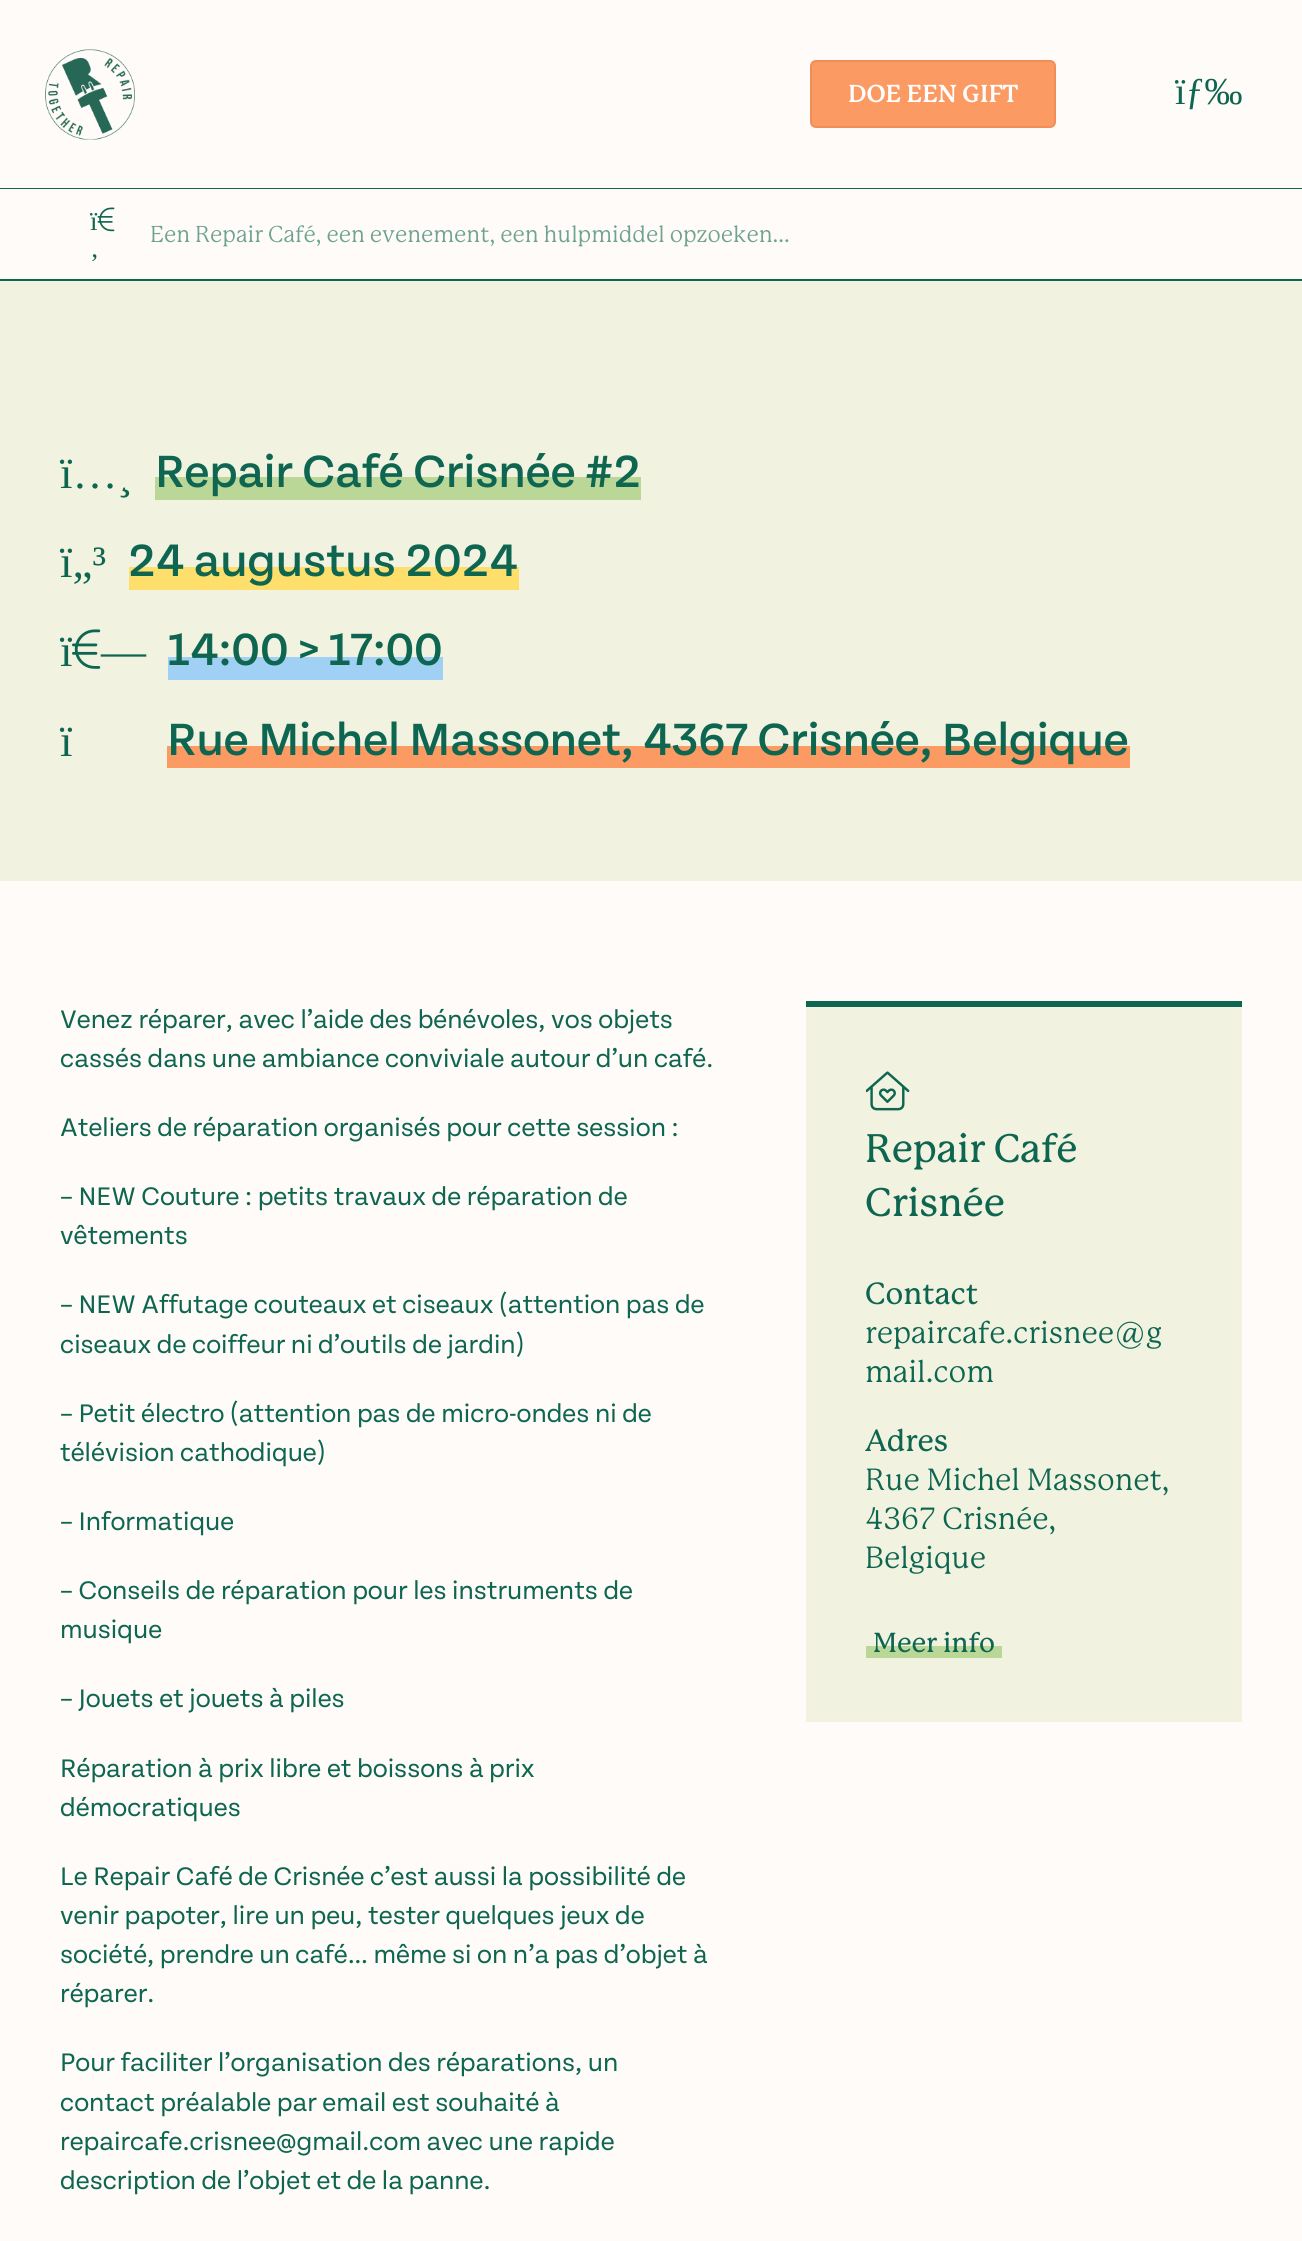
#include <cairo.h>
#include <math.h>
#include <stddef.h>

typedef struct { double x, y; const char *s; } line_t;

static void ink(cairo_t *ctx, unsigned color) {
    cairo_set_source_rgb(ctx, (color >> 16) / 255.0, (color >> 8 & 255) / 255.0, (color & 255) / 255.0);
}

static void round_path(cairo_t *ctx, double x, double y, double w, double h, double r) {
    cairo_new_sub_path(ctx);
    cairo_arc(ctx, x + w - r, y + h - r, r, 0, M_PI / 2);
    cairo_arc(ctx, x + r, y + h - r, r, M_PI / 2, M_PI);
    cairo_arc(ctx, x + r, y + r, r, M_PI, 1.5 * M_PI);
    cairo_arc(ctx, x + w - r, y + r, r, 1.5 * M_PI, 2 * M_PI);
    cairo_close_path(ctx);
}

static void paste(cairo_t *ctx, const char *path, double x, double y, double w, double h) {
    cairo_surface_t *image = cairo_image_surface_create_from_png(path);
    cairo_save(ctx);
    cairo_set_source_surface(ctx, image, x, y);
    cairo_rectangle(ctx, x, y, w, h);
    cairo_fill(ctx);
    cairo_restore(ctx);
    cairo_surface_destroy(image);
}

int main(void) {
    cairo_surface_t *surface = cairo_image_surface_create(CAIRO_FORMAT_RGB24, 1302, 2241);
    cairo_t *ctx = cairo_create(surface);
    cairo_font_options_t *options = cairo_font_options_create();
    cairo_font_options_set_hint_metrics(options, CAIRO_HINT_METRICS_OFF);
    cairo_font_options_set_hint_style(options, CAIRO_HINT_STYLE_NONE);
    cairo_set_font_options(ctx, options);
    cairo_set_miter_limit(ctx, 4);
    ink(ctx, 0xFFFBF8);
    cairo_paint(ctx);
    ink(ctx, 0x0E6651);
    cairo_rectangle(ctx, 0, 188, 1302, 1);
    cairo_fill(ctx);
    paste(ctx, "media/1.png", 45, 49, 90, 91);
    ink(ctx, 0xFC9A64);
    round_path(ctx, 811, 61, 244, 66, 5);
    cairo_fill_preserve(ctx);
    ink(ctx, 0xF08E58);
    cairo_stroke(ctx);
    cairo_select_font_face(ctx, "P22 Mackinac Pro", CAIRO_FONT_SLANT_NORMAL, CAIRO_FONT_WEIGHT_BOLD);
    cairo_set_font_size(ctx, 24);
    ink(ctx, 0xFFFFFF);
    cairo_move_to(ctx, 848, 102);
    cairo_show_text(ctx, "DOE EEN GIFT");
    cairo_select_font_face(ctx, "Liberation Serif", CAIRO_FONT_SLANT_NORMAL, CAIRO_FONT_WEIGHT_NORMAL);
    cairo_set_font_size(ctx, 38);
    ink(ctx, 0x0E6651);
    cairo_move_to(ctx, 1175, 104);
    cairo_show_text(ctx, "ïƒ‰");
    cairo_rectangle(ctx, 0, 279, 1302, 2);
    cairo_fill(ctx);
    paste(ctx, "media/2.png", 97, 207, 18, 25);
    cairo_set_font_size(ctx, 27);
    cairo_move_to(ctx, 90, 230);
    cairo_show_text(ctx, "ï");
    cairo_move_to(ctx, 90, 257);
    cairo_show_text(ctx, "‚");
    cairo_select_font_face(ctx, "P22 Mackinac Pro", CAIRO_FONT_SLANT_NORMAL, CAIRO_FONT_WEIGHT_NORMAL);
    cairo_set_font_size(ctx, 22.5);
    ink(ctx, 0x6EA294);
    cairo_move_to(ctx, 150, 242);
    cairo_show_text(ctx, "Een Repair Café, een evenement, een hulpmiddel opzoeken...");
    ink(ctx, 0xF1F2E0);
    cairo_rectangle(ctx, 0, 281, 1302, 600);
    cairo_fill(ctx);
    cairo_select_font_face(ctx, "Liberation Serif", CAIRO_FONT_SLANT_NORMAL, CAIRO_FONT_WEIGHT_NORMAL);
    cairo_set_font_size(ctx, 45);
    ink(ctx, 0x0E6651);
    cairo_move_to(ctx, 60, 488);
    cairo_show_text(ctx, "ï…¸");
    ink(ctx, 0xBAD798);
    cairo_rectangle(ctx, 155, 477, 486, 23);
    cairo_fill(ctx);
    cairo_select_font_face(ctx, "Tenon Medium", CAIRO_FONT_SLANT_NORMAL, CAIRO_FONT_WEIGHT_NORMAL);
    cairo_set_font_size(ctx, 48);
    ink(ctx, 0x0E6651);
    cairo_move_to(ctx, 155, 487);
    cairo_show_text(ctx, "Repair Café Crisnée #2");
    cairo_select_font_face(ctx, "Liberation Serif", CAIRO_FONT_SLANT_NORMAL, CAIRO_FONT_WEIGHT_NORMAL);
    cairo_set_font_size(ctx, 45);
    cairo_move_to(ctx, 60, 577);
    cairo_show_text(ctx, "ï„³");
    ink(ctx, 0xFFDF6C);
    cairo_rectangle(ctx, 129, 567, 390, 23);
    cairo_fill(ctx);
    cairo_select_font_face(ctx, "Tenon Medium", CAIRO_FONT_SLANT_NORMAL, CAIRO_FONT_WEIGHT_NORMAL);
    cairo_set_font_size(ctx, 48);
    ink(ctx, 0x0E6651);
    cairo_move_to(ctx, 128, 576);
    cairo_show_text(ctx, "24 augustus 2024");
    paste(ctx, "media/3.png", 72, 629, 29, 40);
    cairo_select_font_face(ctx, "Liberation Serif", CAIRO_FONT_SLANT_NORMAL, CAIRO_FONT_WEIGHT_NORMAL);
    cairo_set_font_size(ctx, 45);
    cairo_move_to(ctx, 60, 666);
    cairo_show_text(ctx, "ï");
    cairo_move_to(ctx, 101, 666);
    cairo_show_text(ctx, "—");
    ink(ctx, 0xA1D0F5);
    cairo_rectangle(ctx, 168, 657, 275, 23);
    cairo_fill(ctx);
    cairo_select_font_face(ctx, "Tenon Medium", CAIRO_FONT_SLANT_NORMAL, CAIRO_FONT_WEIGHT_NORMAL);
    cairo_set_font_size(ctx, 48);
    ink(ctx, 0x0E6651);
    cairo_move_to(ctx, 168, 665);
    cairo_show_text(ctx, "14:00 > 17:00");
    cairo_select_font_face(ctx, "Liberation Serif", CAIRO_FONT_SLANT_NORMAL, CAIRO_FONT_WEIGHT_NORMAL);
    cairo_set_font_size(ctx, 45);
    cairo_move_to(ctx, 60, 756);
    cairo_show_text(ctx, "ï");
    ink(ctx, 0xFC9A64);
    cairo_rectangle(ctx, 167, 746, 963, 22);
    cairo_fill(ctx);
    cairo_select_font_face(ctx, "Tenon Medium", CAIRO_FONT_SLANT_NORMAL, CAIRO_FONT_WEIGHT_NORMAL);
    cairo_set_font_size(ctx, 48);
    ink(ctx, 0x0E6651);
    cairo_move_to(ctx, 167, 755);
    cairo_show_text(ctx, "Rue Michel Massonet, 4367 Crisnée, Belgique");
    cairo_select_font_face(ctx, "Tenon", CAIRO_FONT_SLANT_NORMAL, CAIRO_FONT_WEIGHT_NORMAL);
    cairo_set_font_size(ctx, 27);
    {
        static const line_t items[] = {
            {60, 1028, "Venez réparer, avec l’aide des bénévoles, vos objets"},
            {60, 1067, "cassés dans une ambiance conviviale autour d’un café."},
            {60, 1136, "Ateliers de réparation organisés pour cette session :"},
            {60, 1205, "– NEW Couture : petits travaux de réparation de"},
            {60, 1244, "vêtements"},
            {60, 1313, "– NEW Affutage couteaux et ciseaux (attention pas de"},
            {60, 1353, "ciseaux de coiffeur ni d’outils de jardin)"},
            {60, 1422, "– Petit électro (attention pas de micro-ondes ni de"},
            {60, 1461, "télévision cathodique)"},
            {60, 1530, "– Informatique"},
            {60, 1599, "– Conseils de réparation pour les instruments de"},
            {60, 1638, "musique"},
            {60, 1707, "– Jouets et jouets à piles"},
            {60, 1777, "Réparation à prix libre et boissons à prix"},
            {60, 1816, "démocratiques"},
            {60, 1885, "Le Repair Café de Crisnée c’est aussi la possibilité de"},
            {60, 1924, "venir papoter, lire un peu, tester quelques jeux de"},
            {60, 1963, "société, prendre un café… même si on n’a pas d’objet à"},
            {60, 2002, "réparer."},
            {60, 2071, "Pour faciliter l’organisation des réparations, un"},
            {60, 2111, "contact préalable par email est souhaité à"},
            {60, 2150, "repaircafe.crisnee@gmail.com avec une rapide"},
            {60, 2189, "description de l’objet et de la panne."},
        };
        for (size_t i = 0; i < sizeof items / sizeof *items; i++) {
            cairo_move_to(ctx, items[i].x, items[i].y);
            cairo_show_text(ctx, items[i].s);
        }
    }
    ink(ctx, 0xF1F2E0);
    cairo_rectangle(ctx, 806, 1007, 436, 715);
    cairo_fill(ctx);
    ink(ctx, 0x0E6651);
    cairo_rectangle(ctx, 806, 1001, 436, 6);
    cairo_fill(ctx);
    paste(ctx, "media/4.png", 866, 1071, 44, 40);
    cairo_select_font_face(ctx, "P22 Mackinac Pro Medium", CAIRO_FONT_SLANT_NORMAL, CAIRO_FONT_WEIGHT_NORMAL);
    cairo_set_font_size(ctx, 39);
    cairo_move_to(ctx, 865, 1162);
    cairo_show_text(ctx, "Repair Café");
    cairo_move_to(ctx, 865, 1216);
    cairo_show_text(ctx, "Crisnée");
    cairo_set_font_size(ctx, 30);
    cairo_move_to(ctx, 865, 1304);
    cairo_show_text(ctx, "Contact");
    cairo_select_font_face(ctx, "P22 Mackinac Pro", CAIRO_FONT_SLANT_NORMAL, CAIRO_FONT_WEIGHT_NORMAL);
    cairo_move_to(ctx, 865, 1343);
    cairo_show_text(ctx, "repaircafe.crisnee@g");
    cairo_move_to(ctx, 865, 1382);
    cairo_show_text(ctx, "mail.com");
    cairo_select_font_face(ctx, "P22 Mackinac Pro Medium", CAIRO_FONT_SLANT_NORMAL, CAIRO_FONT_WEIGHT_NORMAL);
    cairo_move_to(ctx, 865, 1451);
    cairo_show_text(ctx, "Adres");
    cairo_select_font_face(ctx, "P22 Mackinac Pro", CAIRO_FONT_SLANT_NORMAL, CAIRO_FONT_WEIGHT_NORMAL);
    {
        static const line_t items[] = {
            {865, 1490, "Rue Michel Massonet,"},
            {865, 1529, "4367 Crisnée,"},
            {865, 1568, "Belgique"},
        };
        for (size_t i = 0; i < sizeof items / sizeof *items; i++) {
            cairo_move_to(ctx, items[i].x, items[i].y);
            cairo_show_text(ctx, items[i].s);
        }
    }
    ink(ctx, 0xBAD798);
    cairo_rectangle(ctx, 866, 1646, 136, 12);
    cairo_fill(ctx);
    cairo_select_font_face(ctx, "P22 Mackinac Pro Medium", CAIRO_FONT_SLANT_NORMAL, CAIRO_FONT_WEIGHT_NORMAL);
    cairo_set_font_size(ctx, 27);
    ink(ctx, 0x0E6651);
    cairo_move_to(ctx, 873, 1652);
    cairo_show_text(ctx, "Meer info");
    cairo_surface_write_to_png(surface, "image.png");
    cairo_font_options_destroy(options);
    cairo_destroy(ctx);
    cairo_surface_destroy(surface);
    return 0;
}
